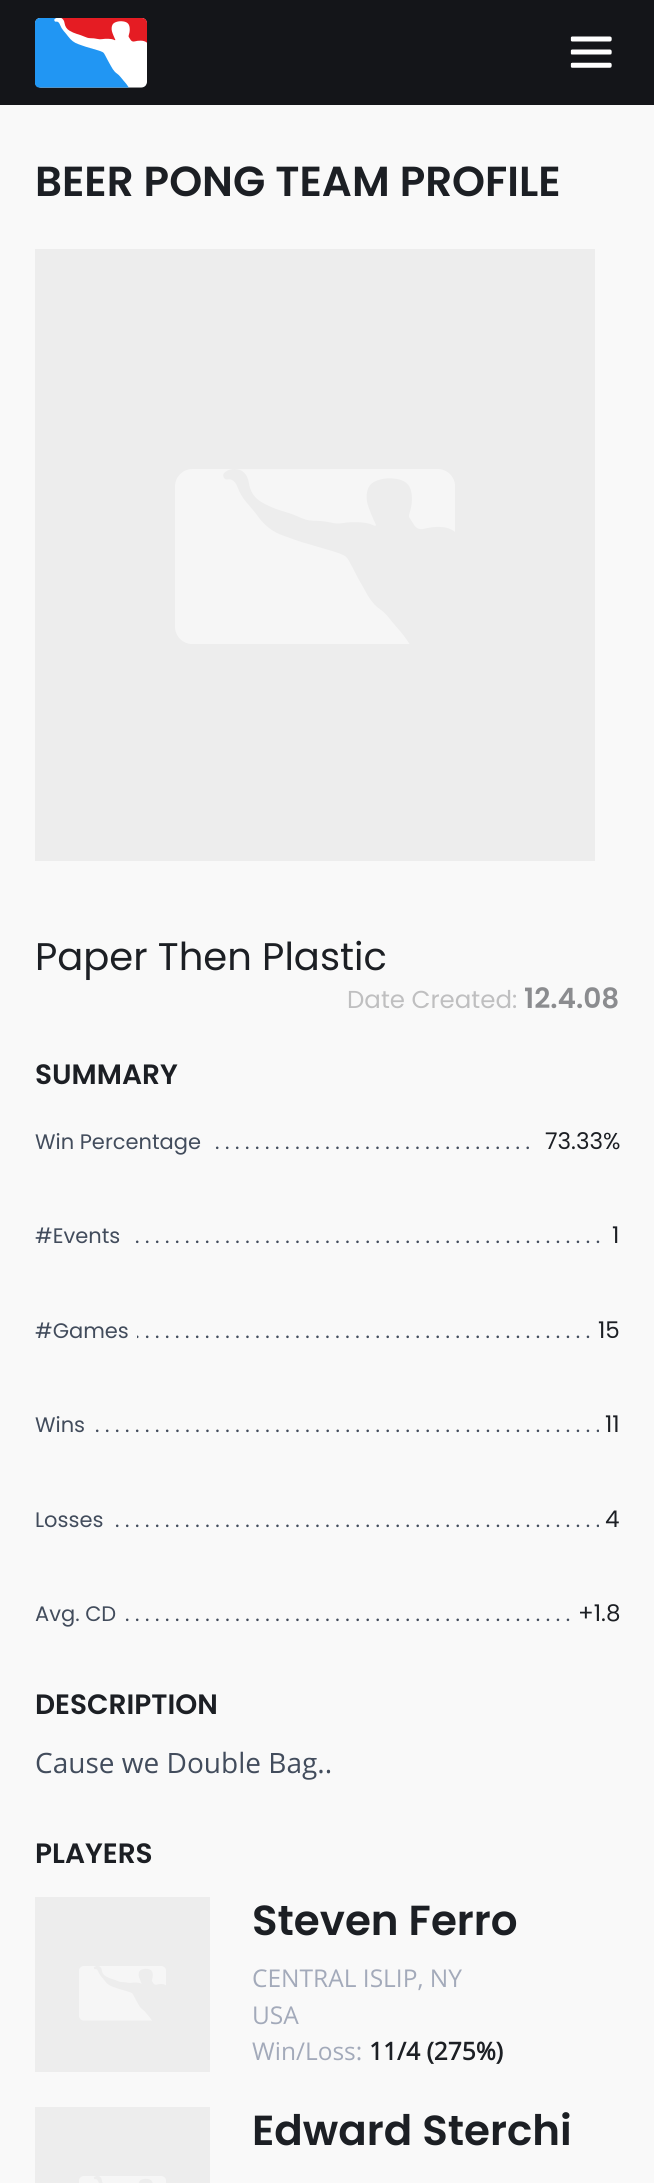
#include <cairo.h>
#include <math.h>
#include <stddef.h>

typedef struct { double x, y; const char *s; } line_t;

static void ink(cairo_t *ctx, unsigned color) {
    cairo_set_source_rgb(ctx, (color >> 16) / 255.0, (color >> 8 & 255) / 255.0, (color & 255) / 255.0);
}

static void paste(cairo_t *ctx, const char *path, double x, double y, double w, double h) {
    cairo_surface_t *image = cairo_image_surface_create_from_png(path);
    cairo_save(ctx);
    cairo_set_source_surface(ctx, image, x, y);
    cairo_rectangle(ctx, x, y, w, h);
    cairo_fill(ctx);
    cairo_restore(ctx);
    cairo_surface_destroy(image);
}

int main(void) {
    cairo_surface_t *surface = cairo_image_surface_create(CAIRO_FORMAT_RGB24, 654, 2183);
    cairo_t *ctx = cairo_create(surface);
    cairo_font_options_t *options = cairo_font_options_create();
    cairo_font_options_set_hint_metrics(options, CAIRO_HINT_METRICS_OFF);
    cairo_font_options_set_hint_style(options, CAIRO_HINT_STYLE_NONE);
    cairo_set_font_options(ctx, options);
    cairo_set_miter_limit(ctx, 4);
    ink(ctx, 0x141519);
    cairo_paint(ctx);
    paste(ctx, "media/1.png", 35, 18, 112, 70);
    paste(ctx, "media/2.png", 570, 36, 42, 32);
    ink(ctx, 0xF9F9F9);
    cairo_rectangle(ctx, 0, 105, 654, 2078);
    cairo_fill(ctx);
    cairo_select_font_face(ctx, "Poppins SemiBold", CAIRO_FONT_SLANT_NORMAL, CAIRO_FONT_WEIGHT_NORMAL);
    cairo_set_font_size(ctx, 42);
    ink(ctx, 0x1C1F24);
    cairo_move_to(ctx, 35, 196);
    cairo_show_text(ctx, "BEER PONG TEAM PROFILE");
    ink(ctx, 0xEDEDED);
    cairo_rectangle(ctx, 35, 249, 560, 612);
    cairo_fill(ctx);
    paste(ctx, "media/3.png", 175, 469, 280, 175);
    cairo_select_font_face(ctx, "Poppins", CAIRO_FONT_SLANT_NORMAL, CAIRO_FONT_WEIGHT_NORMAL);
    cairo_set_font_size(ctx, 38.5);
    ink(ctx, 0x1C1F24);
    cairo_move_to(ctx, 35, 970);
    cairo_show_text(ctx, "Paper Then Plastic");
    cairo_set_font_size(ctx, 24.5);
    ink(ctx, 0xBFBFC0);
    cairo_move_to(ctx, 347, 1008);
    cairo_show_text(ctx, "Date Created:");
    cairo_select_font_face(ctx, "Poppins SemiBold", CAIRO_FONT_SLANT_NORMAL, CAIRO_FONT_WEIGHT_NORMAL);
    cairo_set_font_size(ctx, 28);
    ink(ctx, 0x8B8C8F);
    cairo_move_to(ctx, 524, 1008);
    cairo_show_text(ctx, "12.4.08");
    ink(ctx, 0x1C1F24);
    cairo_move_to(ctx, 35, 1084);
    cairo_show_text(ctx, "SUMMARY");
    cairo_select_font_face(ctx, "Poppins", CAIRO_FONT_SLANT_NORMAL, CAIRO_FONT_WEIGHT_NORMAL);
    cairo_set_font_size(ctx, 21);
    ink(ctx, 0x424C5C);
    cairo_move_to(ctx, 35, 1149);
    cairo_show_text(ctx, "Win Percentage");
    cairo_move_to(ctx, 215, 1149);
    cairo_show_text(ctx, ". . . . . . . . . . . . . . . . . . . . . . . . . . . . . . . .");
    cairo_set_font_size(ctx, 23);
    ink(ctx, 0x1C1F24);
    cairo_move_to(ctx, 545, 1149);
    cairo_show_text(ctx, "73.33%");
    cairo_set_font_size(ctx, 21);
    ink(ctx, 0x424C5C);
    cairo_move_to(ctx, 35, 1243);
    cairo_show_text(ctx, "#Events");
    cairo_move_to(ctx, 135, 1243);
    cairo_show_text(ctx, ". . . . . . . . . . . . . . . . . . . . . . . . . . . . . . . . . . . . . . . . . . . . . . .");
    cairo_set_font_size(ctx, 23);
    ink(ctx, 0x1C1F24);
    cairo_move_to(ctx, 612, 1243);
    cairo_show_text(ctx, "1");
    cairo_set_font_size(ctx, 21);
    ink(ctx, 0x424C5C);
    cairo_move_to(ctx, 35, 1338);
    cairo_show_text(ctx, "#Games");
    cairo_move_to(ctx, 135, 1338);
    cairo_show_text(ctx, ". . . . . . . . . . . . . . . . . . . . . . . . . . . . . . . . . . . . . . . . . . . . . .");
    ink(ctx, 0xF9F9F9);
    cairo_rectangle(ctx, 136, 1335, 1, 3);
    cairo_fill(ctx);
    cairo_set_font_size(ctx, 23);
    ink(ctx, 0x1C1F24);
    cairo_move_to(ctx, 598, 1338);
    cairo_show_text(ctx, "15");
    cairo_set_font_size(ctx, 21);
    ink(ctx, 0x424C5C);
    cairo_move_to(ctx, 35, 1432);
    cairo_show_text(ctx, "Wins");
    cairo_move_to(ctx, 95, 1432);
    cairo_show_text(ctx, ". . . . . . . . . . . . . . . . . . . . . . . . . . . . . . . . . . . . . . . . . . . . . . . . . . .");
    ink(ctx, 0xF9F9F9);
    cairo_rectangle(ctx, 599, 1430, 1, 2);
    cairo_fill(ctx);
    cairo_set_font_size(ctx, 23);
    ink(ctx, 0x1C1F24);
    cairo_move_to(ctx, 605, 1432);
    cairo_show_text(ctx, "11");
    cairo_set_font_size(ctx, 21);
    ink(ctx, 0x424C5C);
    cairo_move_to(ctx, 35, 1527);
    cairo_show_text(ctx, "Losses");
    cairo_move_to(ctx, 115, 1527);
    cairo_show_text(ctx, ". . . . . . . . . . . . . . . . . . . . . . . . . . . . . . . . . . . . . . . . . . . . . . . . .");
    ink(ctx, 0xF9F9F9);
    cairo_rectangle(ctx, 599, 1525, 1, 2);
    cairo_fill(ctx);
    cairo_set_font_size(ctx, 23);
    ink(ctx, 0x1C1F24);
    cairo_move_to(ctx, 605, 1527);
    cairo_show_text(ctx, "4");
    cairo_set_font_size(ctx, 21);
    ink(ctx, 0x424C5C);
    cairo_move_to(ctx, 35, 1621);
    cairo_show_text(ctx, "Avg. CD");
    cairo_move_to(ctx, 125, 1621);
    cairo_show_text(ctx, ". . . . . . . . . . . . . . . . . . . . . . . . . . . . . . . . . . . . . . . . . . . . .");
    cairo_set_font_size(ctx, 23);
    ink(ctx, 0x1C1F24);
    cairo_move_to(ctx, 578, 1621);
    cairo_show_text(ctx, "+1.8");
    cairo_select_font_face(ctx, "Poppins SemiBold", CAIRO_FONT_SLANT_NORMAL, CAIRO_FONT_WEIGHT_NORMAL);
    cairo_set_font_size(ctx, 28);
    cairo_move_to(ctx, 35, 1714);
    cairo_show_text(ctx, "DESCRIPTION");
    cairo_select_font_face(ctx, "Open Sans", CAIRO_FONT_SLANT_NORMAL, CAIRO_FONT_WEIGHT_NORMAL);
    ink(ctx, 0x424C5C);
    cairo_move_to(ctx, 35, 1773);
    cairo_show_text(ctx, "Cause we Double Bag..");
    cairo_select_font_face(ctx, "Poppins SemiBold", CAIRO_FONT_SLANT_NORMAL, CAIRO_FONT_WEIGHT_NORMAL);
    ink(ctx, 0x1C1F24);
    cairo_move_to(ctx, 35, 1863);
    cairo_show_text(ctx, "PLAYERS");
    ink(ctx, 0xEDEDED);
    cairo_rectangle(ctx, 35, 1897, 175, 175);
    cairo_fill(ctx);
    paste(ctx, "media/4.png", 79, 1966, 87, 55);
    cairo_set_font_size(ctx, 42);
    ink(ctx, 0x1C1F24);
    cairo_move_to(ctx, 252, 1935);
    cairo_show_text(ctx, "Steven Ferro");
    cairo_select_font_face(ctx, "Open Sans", CAIRO_FONT_SLANT_NORMAL, CAIRO_FONT_WEIGHT_NORMAL);
    cairo_set_font_size(ctx, 24.5);
    ink(ctx, 0xA3AABA);
    {
        static const line_t items[] = {
            {252, 1987, "CENTRAL ISLIP, NY"},
            {252, 2024, "USA"},
            {252, 2060, "Win/Loss:"},
        };
        for (size_t i = 0; i < sizeof items / sizeof *items; i++) {
            cairo_move_to(ctx, items[i].x, items[i].y);
            cairo_show_text(ctx, items[i].s);
        }
    }
    cairo_select_font_face(ctx, "Open Sans", CAIRO_FONT_SLANT_NORMAL, CAIRO_FONT_WEIGHT_BOLD);
    ink(ctx, 0x1C1F24);
    cairo_move_to(ctx, 369, 2060);
    cairo_show_text(ctx, "11/4 (275%)");
    ink(ctx, 0xEDEDED);
    cairo_rectangle(ctx, 35, 2107, 175, 76);
    cairo_fill(ctx);
    paste(ctx, "media/5.png", 79, 2176, 87, 7);
    cairo_select_font_face(ctx, "Poppins SemiBold", CAIRO_FONT_SLANT_NORMAL, CAIRO_FONT_WEIGHT_NORMAL);
    cairo_set_font_size(ctx, 42);
    ink(ctx, 0x1C1F24);
    cairo_move_to(ctx, 252, 2145);
    cairo_show_text(ctx, "Edward Sterchi");
    cairo_surface_write_to_png(surface, "image.png");
    cairo_font_options_destroy(options);
    cairo_destroy(ctx);
    cairo_surface_destroy(surface);
    return 0;
}
